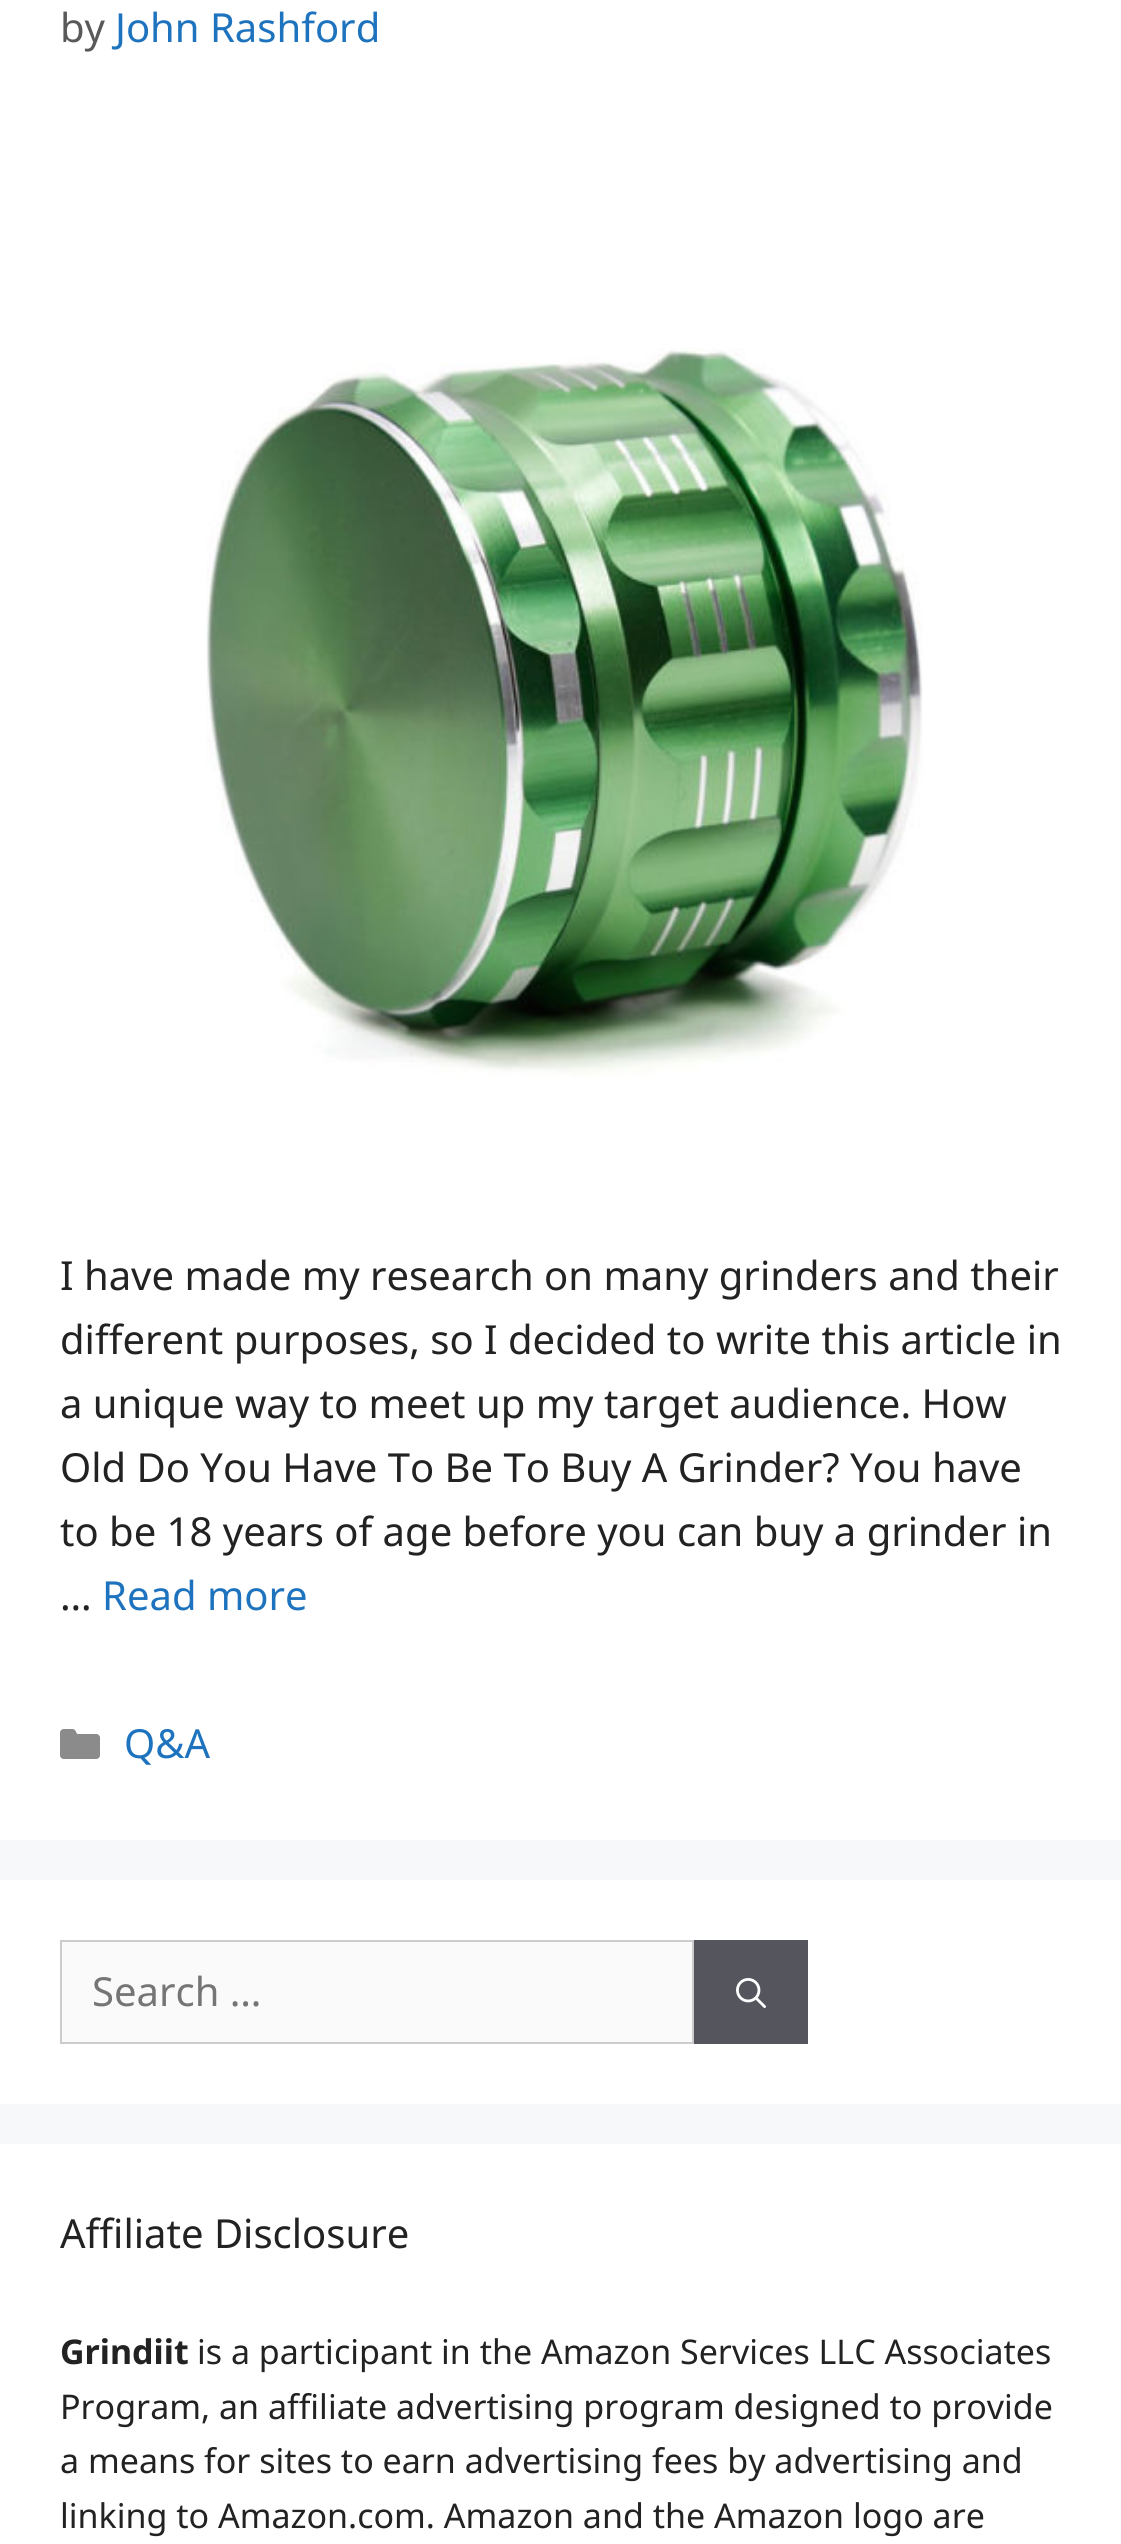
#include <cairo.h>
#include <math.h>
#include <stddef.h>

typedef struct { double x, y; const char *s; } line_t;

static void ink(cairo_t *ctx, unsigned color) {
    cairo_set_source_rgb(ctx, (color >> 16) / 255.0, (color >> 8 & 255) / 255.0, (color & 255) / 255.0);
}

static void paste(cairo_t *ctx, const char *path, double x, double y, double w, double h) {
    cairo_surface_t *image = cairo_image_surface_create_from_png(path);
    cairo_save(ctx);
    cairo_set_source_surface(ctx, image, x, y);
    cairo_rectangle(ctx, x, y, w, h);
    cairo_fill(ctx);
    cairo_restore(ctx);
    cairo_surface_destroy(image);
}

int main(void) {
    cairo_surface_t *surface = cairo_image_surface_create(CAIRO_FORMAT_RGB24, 1121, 2544);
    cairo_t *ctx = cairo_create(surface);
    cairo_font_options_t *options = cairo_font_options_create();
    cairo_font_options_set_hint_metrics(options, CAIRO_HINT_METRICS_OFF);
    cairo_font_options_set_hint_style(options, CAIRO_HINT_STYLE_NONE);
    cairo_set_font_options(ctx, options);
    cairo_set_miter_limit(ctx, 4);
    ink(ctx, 0xF7F8F9);
    cairo_paint(ctx);
    ink(ctx, 0xFFFFFF);
    cairo_rectangle(ctx, 0, 0, 1121, 1840);
    cairo_fill(ctx);
    cairo_select_font_face(ctx, "Noto Sans", CAIRO_FONT_SLANT_NORMAL, CAIRO_FONT_WEIGHT_NORMAL);
    cairo_set_font_size(ctx, 40);
    ink(ctx, 0x595959);
    cairo_move_to(ctx, 60, 42);
    cairo_show_text(ctx, "by");
    ink(ctx, 0x1E73BE);
    cairo_move_to(ctx, 115, 42);
    cairo_show_text(ctx, "John Rashford");
    paste(ctx, "media/1.png", 206, 348, 717, 729);
    ink(ctx, 0x222222);
    {
        static const line_t items[] = {
            {60, 1290, "I have made my research on many grinders and their"},
            {60, 1354, "different purposes, so I decided to write this article in"},
            {60, 1418, "a unique way to meet up my target audience. How"},
            {60, 1482, "Old Do You Have To Be To Buy A Grinder? You have"},
            {60, 1546, "to be 18 years of age before you can buy a grinder in"},
            {60, 1610, "…"},
        };
        for (size_t i = 0; i < sizeof items / sizeof *items; i++) {
            cairo_move_to(ctx, items[i].x, items[i].y);
            cairo_show_text(ctx, items[i].s);
        }
    }
    ink(ctx, 0x1E73BE);
    cairo_move_to(ctx, 102, 1610);
    cairo_show_text(ctx, "Read more");
    paste(ctx, "media/2.png", 60, 1729, 40, 30);
    cairo_move_to(ctx, 124, 1758);
    cairo_show_text(ctx, "Q&A");
    ink(ctx, 0xFFFFFF);
    cairo_rectangle(ctx, 0, 1880, 1121, 224);
    cairo_fill(ctx);
    ink(ctx, 0xFAFAFA);
    cairo_rectangle(ctx, 61, 1941, 632, 102);
    cairo_fill_preserve(ctx);
    ink(ctx, 0xCCCCCC);
    cairo_stroke(ctx);
    ink(ctx, 0x757575);
    cairo_move_to(ctx, 92, 2006);
    cairo_show_text(ctx, "Search …");
    ink(ctx, 0x55555E);
    cairo_rectangle(ctx, 694, 1940, 114, 104);
    cairo_fill(ctx);
    paste(ctx, "media/3.png", 736, 1978, 30, 30);
    ink(ctx, 0xFFFFFF);
    cairo_rectangle(ctx, 0, 2144, 1121, 400);
    cairo_fill(ctx);
    ink(ctx, 0x222222);
    cairo_move_to(ctx, 60, 2248);
    cairo_show_text(ctx, "Affiliate Disclosure");
    cairo_select_font_face(ctx, "Noto Sans", CAIRO_FONT_SLANT_NORMAL, CAIRO_FONT_WEIGHT_BOLD);
    cairo_set_font_size(ctx, 34);
    cairo_move_to(ctx, 60, 2364);
    cairo_show_text(ctx, "Grindiit");
    cairo_select_font_face(ctx, "Noto Sans", CAIRO_FONT_SLANT_NORMAL, CAIRO_FONT_WEIGHT_NORMAL);
    {
        static const line_t items[] = {
            {197, 2364, "is a participant in the Amazon Services LLC Associates"},
            {60, 2419, "Program, an affiliate advertising program designed to provide"},
            {60, 2473, "a means for sites to earn advertising fees by advertising and"},
            {60, 2528, "linking to Amazon.com. Amazon and the Amazon logo are"},
        };
        for (size_t i = 0; i < sizeof items / sizeof *items; i++) {
            cairo_move_to(ctx, items[i].x, items[i].y);
            cairo_show_text(ctx, items[i].s);
        }
    }
    cairo_surface_write_to_png(surface, "image.png");
    cairo_font_options_destroy(options);
    cairo_destroy(ctx);
    cairo_surface_destroy(surface);
    return 0;
}
